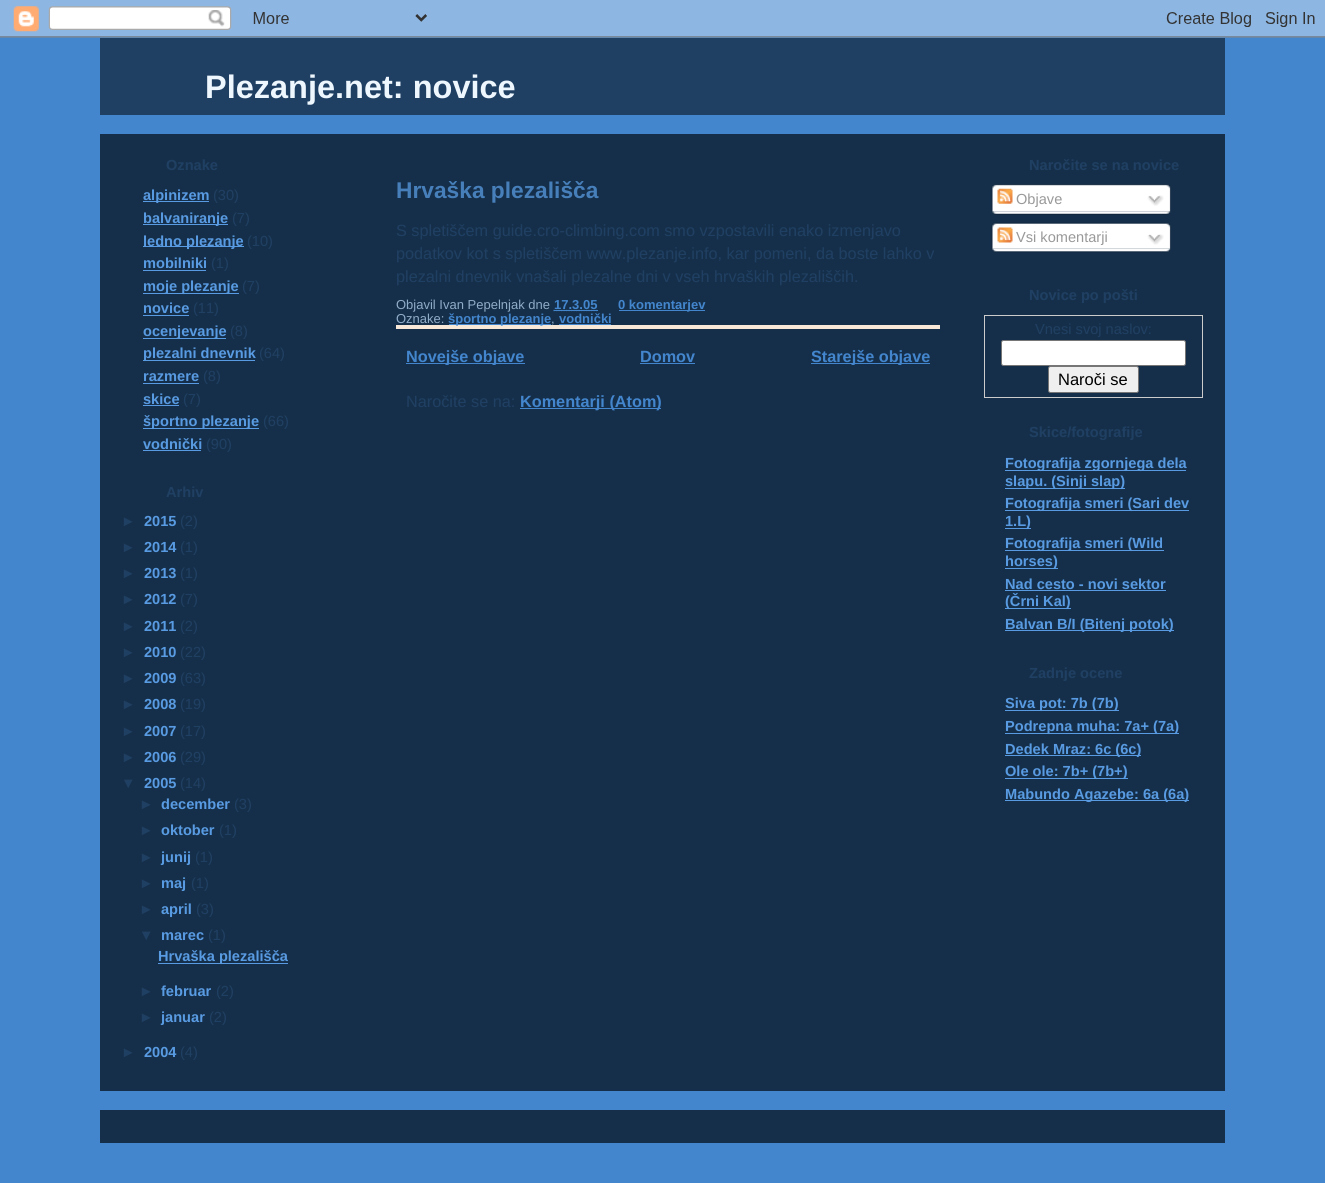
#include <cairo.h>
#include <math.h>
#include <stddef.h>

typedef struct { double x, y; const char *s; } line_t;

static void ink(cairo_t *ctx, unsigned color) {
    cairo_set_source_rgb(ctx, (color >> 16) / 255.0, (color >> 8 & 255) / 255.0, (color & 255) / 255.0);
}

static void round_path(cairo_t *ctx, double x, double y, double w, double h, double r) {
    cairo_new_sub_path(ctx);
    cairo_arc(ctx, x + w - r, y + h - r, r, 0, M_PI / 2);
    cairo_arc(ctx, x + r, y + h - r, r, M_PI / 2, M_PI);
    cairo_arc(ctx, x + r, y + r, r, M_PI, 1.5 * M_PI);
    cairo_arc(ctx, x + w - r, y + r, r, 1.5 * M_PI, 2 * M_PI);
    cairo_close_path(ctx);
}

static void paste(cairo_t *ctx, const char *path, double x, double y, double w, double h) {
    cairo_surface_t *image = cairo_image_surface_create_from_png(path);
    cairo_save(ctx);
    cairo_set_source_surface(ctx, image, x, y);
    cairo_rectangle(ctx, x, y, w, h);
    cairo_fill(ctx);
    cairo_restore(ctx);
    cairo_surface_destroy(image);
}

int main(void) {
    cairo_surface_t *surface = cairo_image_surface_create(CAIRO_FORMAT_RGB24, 1325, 1183);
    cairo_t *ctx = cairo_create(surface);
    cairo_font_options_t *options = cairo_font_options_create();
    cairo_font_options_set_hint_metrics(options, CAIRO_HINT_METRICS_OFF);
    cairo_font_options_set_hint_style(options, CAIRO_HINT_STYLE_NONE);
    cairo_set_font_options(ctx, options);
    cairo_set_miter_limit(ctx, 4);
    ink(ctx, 0x4386CE);
    cairo_paint(ctx);
    paste(ctx, "media/1.png", 0, 0, 1325, 38);
    ink(ctx, 0x204063);
    cairo_rectangle(ctx, 100, 38, 1125, 77);
    cairo_fill(ctx);
    cairo_select_font_face(ctx, "Liberation Sans", CAIRO_FONT_SLANT_NORMAL, CAIRO_FONT_WEIGHT_BOLD);
    cairo_set_font_size(ctx, 32.5);
    ink(ctx, 0xEEF6FE);
    cairo_move_to(ctx, 205, 98);
    cairo_show_text(ctx, "Plezanje.net: novice");
    ink(ctx, 0x152F4A);
    cairo_rectangle(ctx, 100, 134, 1125, 957);
    cairo_fill(ctx);
    cairo_set_font_size(ctx, 14.6);
    ink(ctx, 0x204063);
    cairo_move_to(ctx, 166, 170);
    cairo_show_text(ctx, "Oznake");
    ink(ctx, 0x599BE2);
    cairo_rectangle(ctx, 143, 201, 66, 1);
    cairo_fill(ctx);
    cairo_move_to(ctx, 143, 200);
    cairo_show_text(ctx, "alpinizem");
    cairo_select_font_face(ctx, "Liberation Sans", CAIRO_FONT_SLANT_NORMAL, CAIRO_FONT_WEIGHT_NORMAL);
    ink(ctx, 0x204063);
    cairo_move_to(ctx, 213, 200);
    cairo_show_text(ctx, "(30)");
    ink(ctx, 0x599BE2);
    cairo_rectangle(ctx, 143, 224, 85, 1);
    cairo_fill(ctx);
    cairo_select_font_face(ctx, "Liberation Sans", CAIRO_FONT_SLANT_NORMAL, CAIRO_FONT_WEIGHT_BOLD);
    cairo_move_to(ctx, 143, 223);
    cairo_show_text(ctx, "balvaniranje");
    cairo_select_font_face(ctx, "Liberation Sans", CAIRO_FONT_SLANT_NORMAL, CAIRO_FONT_WEIGHT_NORMAL);
    ink(ctx, 0x204063);
    cairo_move_to(ctx, 232, 223);
    cairo_show_text(ctx, "(7)");
    ink(ctx, 0x599BE2);
    cairo_rectangle(ctx, 143, 246, 101, 1);
    cairo_fill(ctx);
    cairo_select_font_face(ctx, "Liberation Sans", CAIRO_FONT_SLANT_NORMAL, CAIRO_FONT_WEIGHT_BOLD);
    cairo_move_to(ctx, 143, 246);
    cairo_show_text(ctx, "ledno plezanje");
    cairo_select_font_face(ctx, "Liberation Sans", CAIRO_FONT_SLANT_NORMAL, CAIRO_FONT_WEIGHT_NORMAL);
    ink(ctx, 0x204063);
    cairo_move_to(ctx, 247, 246);
    cairo_show_text(ctx, "(10)");
    cairo_select_font_face(ctx, "Liberation Sans", CAIRO_FONT_SLANT_NORMAL, CAIRO_FONT_WEIGHT_BOLD);
    ink(ctx, 0x599BE2);
    cairo_move_to(ctx, 143, 268);
    cairo_show_text(ctx, "mobilniki");
    cairo_rectangle(ctx, 143, 270, 63, 1);
    cairo_fill(ctx);
    cairo_select_font_face(ctx, "Liberation Sans", CAIRO_FONT_SLANT_NORMAL, CAIRO_FONT_WEIGHT_NORMAL);
    ink(ctx, 0x204063);
    cairo_move_to(ctx, 211, 268);
    cairo_show_text(ctx, "(1)");
    ink(ctx, 0x599BE2);
    cairo_rectangle(ctx, 143, 293, 96, 1);
    cairo_fill(ctx);
    cairo_select_font_face(ctx, "Liberation Sans", CAIRO_FONT_SLANT_NORMAL, CAIRO_FONT_WEIGHT_BOLD);
    cairo_move_to(ctx, 143, 291);
    cairo_show_text(ctx, "moje plezanje");
    cairo_select_font_face(ctx, "Liberation Sans", CAIRO_FONT_SLANT_NORMAL, CAIRO_FONT_WEIGHT_NORMAL);
    ink(ctx, 0x204063);
    cairo_move_to(ctx, 242, 291);
    cairo_show_text(ctx, "(7)");
    cairo_select_font_face(ctx, "Liberation Sans", CAIRO_FONT_SLANT_NORMAL, CAIRO_FONT_WEIGHT_BOLD);
    ink(ctx, 0x599BE2);
    cairo_move_to(ctx, 143, 313);
    cairo_show_text(ctx, "novice");
    cairo_rectangle(ctx, 143, 315, 46, 1);
    cairo_fill(ctx);
    cairo_select_font_face(ctx, "Liberation Sans", CAIRO_FONT_SLANT_NORMAL, CAIRO_FONT_WEIGHT_NORMAL);
    ink(ctx, 0x204063);
    cairo_move_to(ctx, 193, 313);
    cairo_show_text(ctx, "(11)");
    ink(ctx, 0x599BE2);
    cairo_rectangle(ctx, 143, 338, 83, 1);
    cairo_fill(ctx);
    cairo_select_font_face(ctx, "Liberation Sans", CAIRO_FONT_SLANT_NORMAL, CAIRO_FONT_WEIGHT_BOLD);
    cairo_move_to(ctx, 143, 336);
    cairo_show_text(ctx, "ocenjevanje");
    cairo_select_font_face(ctx, "Liberation Sans", CAIRO_FONT_SLANT_NORMAL, CAIRO_FONT_WEIGHT_NORMAL);
    ink(ctx, 0x204063);
    cairo_move_to(ctx, 230, 336);
    cairo_show_text(ctx, "(8)");
    ink(ctx, 0x599BE2);
    cairo_rectangle(ctx, 143, 360, 112, 1);
    cairo_fill(ctx);
    cairo_select_font_face(ctx, "Liberation Sans", CAIRO_FONT_SLANT_NORMAL, CAIRO_FONT_WEIGHT_BOLD);
    cairo_move_to(ctx, 143, 358);
    cairo_show_text(ctx, "plezalni dnevnik");
    cairo_select_font_face(ctx, "Liberation Sans", CAIRO_FONT_SLANT_NORMAL, CAIRO_FONT_WEIGHT_NORMAL);
    ink(ctx, 0x204063);
    cairo_move_to(ctx, 259, 358);
    cairo_show_text(ctx, "(64)");
    cairo_select_font_face(ctx, "Liberation Sans", CAIRO_FONT_SLANT_NORMAL, CAIRO_FONT_WEIGHT_BOLD);
    ink(ctx, 0x599BE2);
    cairo_move_to(ctx, 143, 381);
    cairo_show_text(ctx, "razmere");
    cairo_rectangle(ctx, 143, 383, 56, 1);
    cairo_fill(ctx);
    cairo_select_font_face(ctx, "Liberation Sans", CAIRO_FONT_SLANT_NORMAL, CAIRO_FONT_WEIGHT_NORMAL);
    ink(ctx, 0x204063);
    cairo_move_to(ctx, 203, 381);
    cairo_show_text(ctx, "(8)");
    cairo_select_font_face(ctx, "Liberation Sans", CAIRO_FONT_SLANT_NORMAL, CAIRO_FONT_WEIGHT_BOLD);
    ink(ctx, 0x599BE2);
    cairo_move_to(ctx, 143, 404);
    cairo_show_text(ctx, "skice");
    cairo_rectangle(ctx, 143, 405, 36, 1);
    cairo_fill(ctx);
    cairo_select_font_face(ctx, "Liberation Sans", CAIRO_FONT_SLANT_NORMAL, CAIRO_FONT_WEIGHT_NORMAL);
    ink(ctx, 0x204063);
    cairo_move_to(ctx, 183, 404);
    cairo_show_text(ctx, "(7)");
    ink(ctx, 0x599BE2);
    cairo_rectangle(ctx, 143, 428, 116, 1);
    cairo_fill(ctx);
    cairo_select_font_face(ctx, "Liberation Sans", CAIRO_FONT_SLANT_NORMAL, CAIRO_FONT_WEIGHT_BOLD);
    cairo_move_to(ctx, 143, 426);
    cairo_show_text(ctx, "športno plezanje");
    cairo_select_font_face(ctx, "Liberation Sans", CAIRO_FONT_SLANT_NORMAL, CAIRO_FONT_WEIGHT_NORMAL);
    ink(ctx, 0x204063);
    cairo_move_to(ctx, 263, 426);
    cairo_show_text(ctx, "(66)");
    cairo_select_font_face(ctx, "Liberation Sans", CAIRO_FONT_SLANT_NORMAL, CAIRO_FONT_WEIGHT_BOLD);
    ink(ctx, 0x599BE2);
    cairo_move_to(ctx, 143, 449);
    cairo_show_text(ctx, "vodnički");
    cairo_rectangle(ctx, 143, 450, 58, 1);
    cairo_fill(ctx);
    cairo_select_font_face(ctx, "Liberation Sans", CAIRO_FONT_SLANT_NORMAL, CAIRO_FONT_WEIGHT_NORMAL);
    ink(ctx, 0x204063);
    cairo_move_to(ctx, 206, 449);
    cairo_show_text(ctx, "(90)");
    cairo_select_font_face(ctx, "Liberation Sans", CAIRO_FONT_SLANT_NORMAL, CAIRO_FONT_WEIGHT_BOLD);
    cairo_move_to(ctx, 166, 497);
    cairo_show_text(ctx, "Arhiv");
    cairo_move_to(ctx, 121, 526);
    cairo_show_text(ctx, "►");
    ink(ctx, 0x599BE2);
    cairo_move_to(ctx, 144, 526);
    cairo_show_text(ctx, "2015");
    cairo_select_font_face(ctx, "Liberation Sans", CAIRO_FONT_SLANT_NORMAL, CAIRO_FONT_WEIGHT_NORMAL);
    ink(ctx, 0x204063);
    cairo_move_to(ctx, 180, 526);
    cairo_show_text(ctx, "(2)");
    cairo_select_font_face(ctx, "Liberation Sans", CAIRO_FONT_SLANT_NORMAL, CAIRO_FONT_WEIGHT_BOLD);
    cairo_move_to(ctx, 121, 552);
    cairo_show_text(ctx, "►");
    ink(ctx, 0x599BE2);
    cairo_move_to(ctx, 144, 552);
    cairo_show_text(ctx, "2014");
    cairo_select_font_face(ctx, "Liberation Sans", CAIRO_FONT_SLANT_NORMAL, CAIRO_FONT_WEIGHT_NORMAL);
    ink(ctx, 0x204063);
    cairo_move_to(ctx, 180, 552);
    cairo_show_text(ctx, "(1)");
    cairo_select_font_face(ctx, "Liberation Sans", CAIRO_FONT_SLANT_NORMAL, CAIRO_FONT_WEIGHT_BOLD);
    cairo_move_to(ctx, 121, 578);
    cairo_show_text(ctx, "►");
    ink(ctx, 0x599BE2);
    cairo_move_to(ctx, 144, 578);
    cairo_show_text(ctx, "2013");
    cairo_select_font_face(ctx, "Liberation Sans", CAIRO_FONT_SLANT_NORMAL, CAIRO_FONT_WEIGHT_NORMAL);
    ink(ctx, 0x204063);
    cairo_move_to(ctx, 180, 578);
    cairo_show_text(ctx, "(1)");
    cairo_select_font_face(ctx, "Liberation Sans", CAIRO_FONT_SLANT_NORMAL, CAIRO_FONT_WEIGHT_BOLD);
    cairo_move_to(ctx, 121, 604);
    cairo_show_text(ctx, "►");
    ink(ctx, 0x599BE2);
    cairo_move_to(ctx, 144, 604);
    cairo_show_text(ctx, "2012");
    cairo_select_font_face(ctx, "Liberation Sans", CAIRO_FONT_SLANT_NORMAL, CAIRO_FONT_WEIGHT_NORMAL);
    ink(ctx, 0x204063);
    cairo_move_to(ctx, 180, 604);
    cairo_show_text(ctx, "(7)");
    cairo_select_font_face(ctx, "Liberation Sans", CAIRO_FONT_SLANT_NORMAL, CAIRO_FONT_WEIGHT_BOLD);
    cairo_move_to(ctx, 121, 631);
    cairo_show_text(ctx, "►");
    ink(ctx, 0x599BE2);
    cairo_move_to(ctx, 144, 631);
    cairo_show_text(ctx, "2011");
    cairo_select_font_face(ctx, "Liberation Sans", CAIRO_FONT_SLANT_NORMAL, CAIRO_FONT_WEIGHT_NORMAL);
    ink(ctx, 0x204063);
    cairo_move_to(ctx, 180, 631);
    cairo_show_text(ctx, "(2)");
    cairo_select_font_face(ctx, "Liberation Sans", CAIRO_FONT_SLANT_NORMAL, CAIRO_FONT_WEIGHT_BOLD);
    cairo_move_to(ctx, 121, 657);
    cairo_show_text(ctx, "►");
    ink(ctx, 0x599BE2);
    cairo_move_to(ctx, 144, 657);
    cairo_show_text(ctx, "2010");
    cairo_select_font_face(ctx, "Liberation Sans", CAIRO_FONT_SLANT_NORMAL, CAIRO_FONT_WEIGHT_NORMAL);
    ink(ctx, 0x204063);
    cairo_move_to(ctx, 180, 657);
    cairo_show_text(ctx, "(22)");
    cairo_select_font_face(ctx, "Liberation Sans", CAIRO_FONT_SLANT_NORMAL, CAIRO_FONT_WEIGHT_BOLD);
    cairo_move_to(ctx, 121, 683);
    cairo_show_text(ctx, "►");
    ink(ctx, 0x599BE2);
    cairo_move_to(ctx, 144, 683);
    cairo_show_text(ctx, "2009");
    cairo_select_font_face(ctx, "Liberation Sans", CAIRO_FONT_SLANT_NORMAL, CAIRO_FONT_WEIGHT_NORMAL);
    ink(ctx, 0x204063);
    cairo_move_to(ctx, 180, 683);
    cairo_show_text(ctx, "(63)");
    cairo_select_font_face(ctx, "Liberation Sans", CAIRO_FONT_SLANT_NORMAL, CAIRO_FONT_WEIGHT_BOLD);
    cairo_move_to(ctx, 121, 709);
    cairo_show_text(ctx, "►");
    ink(ctx, 0x599BE2);
    cairo_move_to(ctx, 144, 709);
    cairo_show_text(ctx, "2008");
    cairo_select_font_face(ctx, "Liberation Sans", CAIRO_FONT_SLANT_NORMAL, CAIRO_FONT_WEIGHT_NORMAL);
    ink(ctx, 0x204063);
    cairo_move_to(ctx, 180, 709);
    cairo_show_text(ctx, "(19)");
    cairo_select_font_face(ctx, "Liberation Sans", CAIRO_FONT_SLANT_NORMAL, CAIRO_FONT_WEIGHT_BOLD);
    cairo_move_to(ctx, 121, 736);
    cairo_show_text(ctx, "►");
    ink(ctx, 0x599BE2);
    cairo_move_to(ctx, 144, 736);
    cairo_show_text(ctx, "2007");
    cairo_select_font_face(ctx, "Liberation Sans", CAIRO_FONT_SLANT_NORMAL, CAIRO_FONT_WEIGHT_NORMAL);
    ink(ctx, 0x204063);
    cairo_move_to(ctx, 180, 736);
    cairo_show_text(ctx, "(17)");
    cairo_select_font_face(ctx, "Liberation Sans", CAIRO_FONT_SLANT_NORMAL, CAIRO_FONT_WEIGHT_BOLD);
    cairo_move_to(ctx, 121, 762);
    cairo_show_text(ctx, "►");
    ink(ctx, 0x599BE2);
    cairo_move_to(ctx, 144, 762);
    cairo_show_text(ctx, "2006");
    cairo_select_font_face(ctx, "Liberation Sans", CAIRO_FONT_SLANT_NORMAL, CAIRO_FONT_WEIGHT_NORMAL);
    ink(ctx, 0x204063);
    cairo_move_to(ctx, 180, 762);
    cairo_show_text(ctx, "(29)");
    cairo_select_font_face(ctx, "Liberation Sans", CAIRO_FONT_SLANT_NORMAL, CAIRO_FONT_WEIGHT_BOLD);
    cairo_move_to(ctx, 121, 788);
    cairo_show_text(ctx, "▼");
    ink(ctx, 0x599BE2);
    cairo_move_to(ctx, 144, 788);
    cairo_show_text(ctx, "2005");
    cairo_select_font_face(ctx, "Liberation Sans", CAIRO_FONT_SLANT_NORMAL, CAIRO_FONT_WEIGHT_NORMAL);
    ink(ctx, 0x204063);
    cairo_move_to(ctx, 180, 788);
    cairo_show_text(ctx, "(14)");
    cairo_select_font_face(ctx, "Liberation Sans", CAIRO_FONT_SLANT_NORMAL, CAIRO_FONT_WEIGHT_BOLD);
    cairo_move_to(ctx, 139, 809);
    cairo_show_text(ctx, "►");
    ink(ctx, 0x599BE2);
    cairo_move_to(ctx, 161, 809);
    cairo_show_text(ctx, "december");
    cairo_select_font_face(ctx, "Liberation Sans", CAIRO_FONT_SLANT_NORMAL, CAIRO_FONT_WEIGHT_NORMAL);
    ink(ctx, 0x204063);
    cairo_move_to(ctx, 234, 809);
    cairo_show_text(ctx, "(3)");
    cairo_select_font_face(ctx, "Liberation Sans", CAIRO_FONT_SLANT_NORMAL, CAIRO_FONT_WEIGHT_BOLD);
    cairo_move_to(ctx, 139, 835);
    cairo_show_text(ctx, "►");
    ink(ctx, 0x599BE2);
    cairo_move_to(ctx, 161, 835);
    cairo_show_text(ctx, "oktober");
    cairo_select_font_face(ctx, "Liberation Sans", CAIRO_FONT_SLANT_NORMAL, CAIRO_FONT_WEIGHT_NORMAL);
    ink(ctx, 0x204063);
    cairo_move_to(ctx, 219, 835);
    cairo_show_text(ctx, "(1)");
    cairo_select_font_face(ctx, "Liberation Sans", CAIRO_FONT_SLANT_NORMAL, CAIRO_FONT_WEIGHT_BOLD);
    cairo_move_to(ctx, 139, 862);
    cairo_show_text(ctx, "►");
    ink(ctx, 0x599BE2);
    cairo_move_to(ctx, 161, 862);
    cairo_show_text(ctx, "junij");
    cairo_select_font_face(ctx, "Liberation Sans", CAIRO_FONT_SLANT_NORMAL, CAIRO_FONT_WEIGHT_NORMAL);
    ink(ctx, 0x204063);
    cairo_move_to(ctx, 195, 862);
    cairo_show_text(ctx, "(1)");
    cairo_select_font_face(ctx, "Liberation Sans", CAIRO_FONT_SLANT_NORMAL, CAIRO_FONT_WEIGHT_BOLD);
    cairo_move_to(ctx, 139, 888);
    cairo_show_text(ctx, "►");
    ink(ctx, 0x599BE2);
    cairo_move_to(ctx, 161, 888);
    cairo_show_text(ctx, "maj");
    cairo_select_font_face(ctx, "Liberation Sans", CAIRO_FONT_SLANT_NORMAL, CAIRO_FONT_WEIGHT_NORMAL);
    ink(ctx, 0x204063);
    cairo_move_to(ctx, 191, 888);
    cairo_show_text(ctx, "(1)");
    cairo_select_font_face(ctx, "Liberation Sans", CAIRO_FONT_SLANT_NORMAL, CAIRO_FONT_WEIGHT_BOLD);
    cairo_move_to(ctx, 139, 914);
    cairo_show_text(ctx, "►");
    ink(ctx, 0x599BE2);
    cairo_move_to(ctx, 161, 914);
    cairo_show_text(ctx, "april");
    cairo_select_font_face(ctx, "Liberation Sans", CAIRO_FONT_SLANT_NORMAL, CAIRO_FONT_WEIGHT_NORMAL);
    ink(ctx, 0x204063);
    cairo_move_to(ctx, 196, 914);
    cairo_show_text(ctx, "(3)");
    cairo_select_font_face(ctx, "Liberation Sans", CAIRO_FONT_SLANT_NORMAL, CAIRO_FONT_WEIGHT_BOLD);
    cairo_move_to(ctx, 139, 940);
    cairo_show_text(ctx, "▼");
    ink(ctx, 0x599BE2);
    cairo_move_to(ctx, 161, 940);
    cairo_show_text(ctx, "marec");
    cairo_select_font_face(ctx, "Liberation Sans", CAIRO_FONT_SLANT_NORMAL, CAIRO_FONT_WEIGHT_NORMAL);
    ink(ctx, 0x204063);
    cairo_move_to(ctx, 208, 940);
    cairo_show_text(ctx, "(1)");
    ink(ctx, 0x599BE2);
    cairo_rectangle(ctx, 158, 963, 130, 1);
    cairo_fill(ctx);
    cairo_select_font_face(ctx, "Liberation Sans", CAIRO_FONT_SLANT_NORMAL, CAIRO_FONT_WEIGHT_BOLD);
    cairo_move_to(ctx, 158, 961);
    cairo_show_text(ctx, "Hrvaška plezališča");
    ink(ctx, 0x204063);
    cairo_move_to(ctx, 139, 996);
    cairo_show_text(ctx, "►");
    ink(ctx, 0x599BE2);
    cairo_move_to(ctx, 161, 996);
    cairo_show_text(ctx, "februar");
    cairo_select_font_face(ctx, "Liberation Sans", CAIRO_FONT_SLANT_NORMAL, CAIRO_FONT_WEIGHT_NORMAL);
    ink(ctx, 0x204063);
    cairo_move_to(ctx, 216, 996);
    cairo_show_text(ctx, "(2)");
    cairo_select_font_face(ctx, "Liberation Sans", CAIRO_FONT_SLANT_NORMAL, CAIRO_FONT_WEIGHT_BOLD);
    cairo_move_to(ctx, 139, 1022);
    cairo_show_text(ctx, "►");
    ink(ctx, 0x599BE2);
    cairo_move_to(ctx, 161, 1022);
    cairo_show_text(ctx, "januar");
    cairo_select_font_face(ctx, "Liberation Sans", CAIRO_FONT_SLANT_NORMAL, CAIRO_FONT_WEIGHT_NORMAL);
    ink(ctx, 0x204063);
    cairo_move_to(ctx, 209, 1022);
    cairo_show_text(ctx, "(2)");
    cairo_select_font_face(ctx, "Liberation Sans", CAIRO_FONT_SLANT_NORMAL, CAIRO_FONT_WEIGHT_BOLD);
    cairo_move_to(ctx, 121, 1057);
    cairo_show_text(ctx, "►");
    ink(ctx, 0x599BE2);
    cairo_move_to(ctx, 144, 1057);
    cairo_show_text(ctx, "2004");
    cairo_select_font_face(ctx, "Liberation Sans", CAIRO_FONT_SLANT_NORMAL, CAIRO_FONT_WEIGHT_NORMAL);
    ink(ctx, 0x204063);
    cairo_move_to(ctx, 180, 1057);
    cairo_show_text(ctx, "(4)");
    ink(ctx, 0xF7E8D8);
    cairo_rectangle(ctx, 396, 325, 544, 4);
    cairo_fill(ctx);
    cairo_select_font_face(ctx, "Liberation Sans", CAIRO_FONT_SLANT_NORMAL, CAIRO_FONT_WEIGHT_BOLD);
    cairo_set_font_size(ctx, 22.75);
    ink(ctx, 0x477FBA);
    cairo_move_to(ctx, 396, 198);
    cairo_show_text(ctx, "Hrvaška plezališča");
    cairo_select_font_face(ctx, "Liberation Sans", CAIRO_FONT_SLANT_NORMAL, CAIRO_FONT_WEIGHT_NORMAL);
    cairo_set_font_size(ctx, 16.25);
    ink(ctx, 0x204063);
    {
        static const line_t items[] = {
            {396, 236, "S spletiščem guide.cro-climbing.com smo vzpostavili enako izmenjavo"},
            {396, 259, "podatkov kot s spletiščem www.plezanje.info, kar pomeni, da boste lahko v"},
            {396, 282, "plezalni dnevnik vnašali plezalne dni v vseh hrvaških plezališčih."},
        };
        for (size_t i = 0; i < sizeof items / sizeof *items; i++) {
            cairo_move_to(ctx, items[i].x, items[i].y);
            cairo_show_text(ctx, items[i].s);
        }
    }
    cairo_set_font_size(ctx, 13);
    ink(ctx, 0x8FACC8);
    cairo_move_to(ctx, 396, 309);
    cairo_show_text(ctx, "Objavil Ivan Pepelnjak dne");
    cairo_new_path(ctx);
    cairo_move_to(ctx, 553.5, 310.5);
    cairo_line_to(ctx, 597, 310.5);
    ink(ctx, 0x4386CE);
    cairo_set_line_width(ctx, 1.2);
    cairo_set_dash(ctx, (double[]){1.25, 1.25}, 2, 0);
    cairo_stroke(ctx);
    cairo_select_font_face(ctx, "Liberation Sans", CAIRO_FONT_SLANT_NORMAL, CAIRO_FONT_WEIGHT_BOLD);
    cairo_move_to(ctx, 554, 309);
    cairo_show_text(ctx, "17.3.05");
    cairo_rectangle(ctx, 554, 310, 44, 1);
    cairo_fill(ctx);
    cairo_rectangle(ctx, 619, 310, 86, 1);
    cairo_fill(ctx);
    cairo_move_to(ctx, 618, 309);
    cairo_show_text(ctx, "0 komentarjev");
    cairo_select_font_face(ctx, "Liberation Sans", CAIRO_FONT_SLANT_NORMAL, CAIRO_FONT_WEIGHT_NORMAL);
    ink(ctx, 0x8FACC8);
    cairo_move_to(ctx, 396, 323);
    cairo_show_text(ctx, "Oznake:");
    ink(ctx, 0x4386CE);
    cairo_rectangle(ctx, 449, 324, 102, 1);
    cairo_fill(ctx);
    cairo_select_font_face(ctx, "Liberation Sans", CAIRO_FONT_SLANT_NORMAL, CAIRO_FONT_WEIGHT_BOLD);
    cairo_move_to(ctx, 448, 323);
    cairo_show_text(ctx, "športno plezanje");
    cairo_select_font_face(ctx, "Liberation Sans", CAIRO_FONT_SLANT_NORMAL, CAIRO_FONT_WEIGHT_NORMAL);
    ink(ctx, 0x8FACC8);
    cairo_move_to(ctx, 551, 323);
    cairo_show_text(ctx, ",");
    ink(ctx, 0x4386CE);
    cairo_rectangle(ctx, 559, 324, 52, 1);
    cairo_fill(ctx);
    cairo_select_font_face(ctx, "Liberation Sans", CAIRO_FONT_SLANT_NORMAL, CAIRO_FONT_WEIGHT_BOLD);
    cairo_move_to(ctx, 559, 323);
    cairo_show_text(ctx, "vodnički");
    cairo_rectangle(ctx, 406, 363, 119, 1);
    cairo_fill(ctx);
    cairo_save(ctx);
    cairo_rectangle(ctx, 370, 346, 580, 19);
    cairo_clip(ctx);
    cairo_set_font_size(ctx, 16.25);
    cairo_move_to(ctx, 406, 362);
    cairo_show_text(ctx, "Novejše objave");
    cairo_restore(ctx);
    cairo_set_font_size(ctx, 16.25);
    cairo_move_to(ctx, 640, 362);
    cairo_show_text(ctx, "Domov");
    cairo_rectangle(ctx, 640, 363, 55, 1);
    cairo_fill(ctx);
    cairo_rectangle(ctx, 811, 363, 119, 1);
    cairo_fill(ctx);
    cairo_save(ctx);
    cairo_rectangle(ctx, 370, 346, 580, 19);
    cairo_clip(ctx);
    cairo_move_to(ctx, 811, 362);
    cairo_show_text(ctx, "Starejše objave");
    cairo_restore(ctx);
    cairo_select_font_face(ctx, "Liberation Sans", CAIRO_FONT_SLANT_NORMAL, CAIRO_FONT_WEIGHT_NORMAL);
    ink(ctx, 0x204063);
    cairo_move_to(ctx, 406, 407);
    cairo_show_text(ctx, "Naročite se na:");
    ink(ctx, 0x4386CE);
    cairo_rectangle(ctx, 520, 408, 141, 1);
    cairo_fill(ctx);
    cairo_select_font_face(ctx, "Liberation Sans", CAIRO_FONT_SLANT_NORMAL, CAIRO_FONT_WEIGHT_BOLD);
    cairo_move_to(ctx, 520, 407);
    cairo_show_text(ctx, "Komentarji (Atom)");
    cairo_set_font_size(ctx, 14.6);
    ink(ctx, 0x204063);
    cairo_move_to(ctx, 1029, 170);
    cairo_show_text(ctx, "Naročite se na novice");
    paste(ctx, "media/2.png", 991, 184, 180, 28);
    paste(ctx, "media/3.png", 997, 188, 16, 16);
    cairo_select_font_face(ctx, "Liberation Sans", CAIRO_FONT_SLANT_NORMAL, CAIRO_FONT_WEIGHT_NORMAL);
    ink(ctx, 0x999999);
    cairo_move_to(ctx, 1016, 204);
    cairo_show_text(ctx, "Objave");
    paste(ctx, "media/4.png", 1147, 195, 17, 11);
    paste(ctx, "media/5.png", 992, 211, 179, 4);
    paste(ctx, "media/6.png", 991, 222, 180, 27);
    paste(ctx, "media/7.png", 997, 227, 16, 16);
    cairo_move_to(ctx, 1016, 242);
    cairo_show_text(ctx, "Vsi komentarji");
    paste(ctx, "media/8.png", 1147, 234, 17, 11);
    paste(ctx, "media/9.png", 991, 248, 180, 5);
    cairo_select_font_face(ctx, "Liberation Sans", CAIRO_FONT_SLANT_NORMAL, CAIRO_FONT_WEIGHT_BOLD);
    ink(ctx, 0x204063);
    cairo_move_to(ctx, 1029, 300);
    cairo_show_text(ctx, "Novice po pošti");
    cairo_rectangle(ctx, 984.5, 315.5, 218, 82);
    ink(ctx, 0xCCCCCC);
    cairo_set_line_width(ctx, 1);
    cairo_set_dash(ctx, NULL, 0, 0);
    cairo_stroke(ctx);
    cairo_select_font_face(ctx, "Liberation Sans", CAIRO_FONT_SLANT_NORMAL, CAIRO_FONT_WEIGHT_NORMAL);
    ink(ctx, 0x204063);
    cairo_move_to(ctx, 1035, 334);
    cairo_show_text(ctx, "Vnesi svoj naslov:");
    ink(ctx, 0xFFFFFF);
    round_path(ctx, 1001.5, 340.5, 184, 25, 2);
    cairo_fill_preserve(ctx);
    ink(ctx, 0x767676);
    cairo_stroke(ctx);
    ink(ctx, 0xEFEFEF);
    round_path(ctx, 1048.5, 366.5, 90, 26, 2);
    cairo_fill_preserve(ctx);
    ink(ctx, 0x767676);
    cairo_stroke(ctx);
    cairo_set_font_size(ctx, 16.5);
    ink(ctx, 0x000000);
    cairo_move_to(ctx, 1058, 385);
    cairo_show_text(ctx, "Naroči se");
    cairo_select_font_face(ctx, "Liberation Sans", CAIRO_FONT_SLANT_NORMAL, CAIRO_FONT_WEIGHT_BOLD);
    cairo_set_font_size(ctx, 14.6);
    ink(ctx, 0x204063);
    cairo_move_to(ctx, 1029, 437);
    cairo_show_text(ctx, "Skice/fotografije");
    ink(ctx, 0x599BE2);
    cairo_rectangle(ctx, 1005, 470, 181, 1);
    cairo_fill(ctx);
    cairo_move_to(ctx, 1005, 468);
    cairo_show_text(ctx, "Fotografija zgornjega dela");
    cairo_rectangle(ctx, 1005, 488, 120, 1);
    cairo_fill(ctx);
    cairo_move_to(ctx, 1005, 486);
    cairo_show_text(ctx, "slapu. (Sinji slap)");
    cairo_rectangle(ctx, 1005, 510, 184, 1);
    cairo_fill(ctx);
    cairo_move_to(ctx, 1005, 508);
    cairo_show_text(ctx, "Fotografija smeri (Sari dev");
    cairo_rectangle(ctx, 1005, 528, 26, 1);
    cairo_fill(ctx);
    cairo_move_to(ctx, 1005, 526);
    cairo_show_text(ctx, "1.L)");
    cairo_rectangle(ctx, 1005, 550, 159, 1);
    cairo_fill(ctx);
    cairo_move_to(ctx, 1005, 548);
    cairo_show_text(ctx, "Fotografija smeri (Wild");
    cairo_rectangle(ctx, 1005, 568, 53, 1);
    cairo_fill(ctx);
    cairo_move_to(ctx, 1005, 566);
    cairo_show_text(ctx, "horses)");
    cairo_move_to(ctx, 1005, 589);
    cairo_show_text(ctx, "Nad cesto - novi sektor");
    cairo_rectangle(ctx, 1005, 590, 161, 1);
    cairo_fill(ctx);
    cairo_rectangle(ctx, 1005, 608, 66, 1);
    cairo_fill(ctx);
    cairo_move_to(ctx, 1005, 606);
    cairo_show_text(ctx, "(Črni Kal)");
    cairo_rectangle(ctx, 1005, 630, 169, 1);
    cairo_fill(ctx);
    cairo_move_to(ctx, 1005, 629);
    cairo_show_text(ctx, "Balvan B/I (Bitenj potok)");
    ink(ctx, 0x204063);
    cairo_move_to(ctx, 1029, 678);
    cairo_show_text(ctx, "Zadnje ocene");
    ink(ctx, 0x599BE2);
    cairo_rectangle(ctx, 1005, 710, 114, 1);
    cairo_fill(ctx);
    cairo_move_to(ctx, 1005, 708);
    cairo_show_text(ctx, "Siva pot: 7b (7b)");
    cairo_rectangle(ctx, 1005, 733, 174, 1);
    cairo_fill(ctx);
    cairo_move_to(ctx, 1005, 731);
    cairo_show_text(ctx, "Podrepna muha: 7a+ (7a)");
    cairo_rectangle(ctx, 1005, 755, 136, 1);
    cairo_fill(ctx);
    cairo_move_to(ctx, 1005, 754);
    cairo_show_text(ctx, "Dedek Mraz: 6c (6c)");
    cairo_rectangle(ctx, 1005, 778, 123, 1);
    cairo_fill(ctx);
    cairo_move_to(ctx, 1005, 776);
    cairo_show_text(ctx, "Ole ole: 7b+ (7b+)");
    cairo_rectangle(ctx, 1005, 800, 184, 1);
    cairo_fill(ctx);
    cairo_move_to(ctx, 1005, 799);
    cairo_show_text(ctx, "Mabundo Agazebe: 6a (6a)");
    ink(ctx, 0x152F4A);
    cairo_rectangle(ctx, 100, 1110, 1125, 33);
    cairo_fill(ctx);
    cairo_surface_write_to_png(surface, "image.png");
    cairo_font_options_destroy(options);
    cairo_destroy(ctx);
    cairo_surface_destroy(surface);
    return 0;
}
